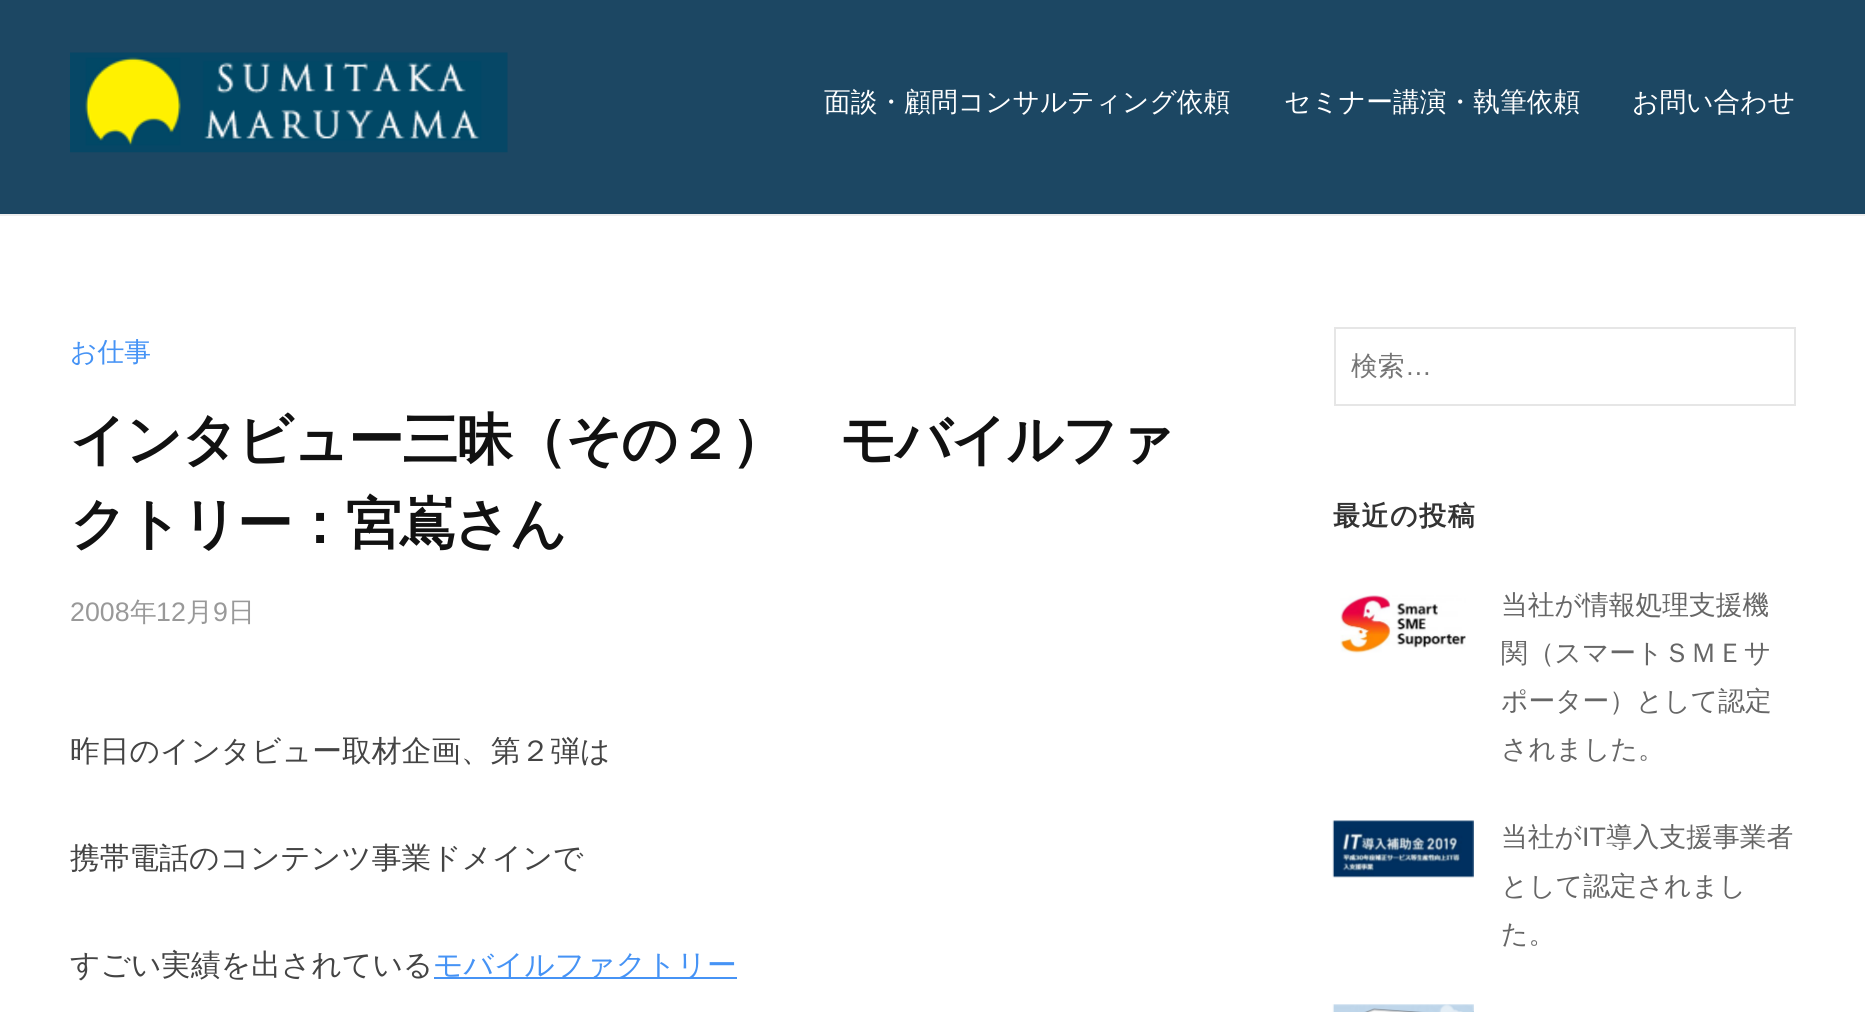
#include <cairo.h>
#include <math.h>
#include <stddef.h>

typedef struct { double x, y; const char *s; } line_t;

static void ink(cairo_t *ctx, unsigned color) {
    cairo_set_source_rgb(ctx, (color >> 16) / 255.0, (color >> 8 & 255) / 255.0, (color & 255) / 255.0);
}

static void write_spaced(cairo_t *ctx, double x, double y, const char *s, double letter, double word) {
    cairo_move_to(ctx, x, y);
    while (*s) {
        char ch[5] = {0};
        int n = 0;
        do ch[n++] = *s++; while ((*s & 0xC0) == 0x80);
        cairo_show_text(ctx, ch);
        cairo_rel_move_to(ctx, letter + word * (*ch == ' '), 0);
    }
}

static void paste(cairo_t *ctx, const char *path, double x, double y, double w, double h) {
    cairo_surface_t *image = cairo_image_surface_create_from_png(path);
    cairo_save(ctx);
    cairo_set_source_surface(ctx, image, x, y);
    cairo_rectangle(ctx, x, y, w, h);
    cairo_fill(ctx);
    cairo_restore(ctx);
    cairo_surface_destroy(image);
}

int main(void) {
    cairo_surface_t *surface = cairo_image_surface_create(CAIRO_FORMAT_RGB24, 1865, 1012);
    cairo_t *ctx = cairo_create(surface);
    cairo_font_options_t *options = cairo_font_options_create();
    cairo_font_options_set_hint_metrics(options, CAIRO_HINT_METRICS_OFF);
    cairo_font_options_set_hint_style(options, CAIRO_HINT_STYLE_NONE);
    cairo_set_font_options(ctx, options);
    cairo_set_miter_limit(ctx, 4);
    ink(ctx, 0xFFFFFF);
    cairo_paint(ctx);
    ink(ctx, 0xEEEEEE);
    cairo_rectangle(ctx, 0, 214, 1865, 2);
    cairo_fill(ctx);
    ink(ctx, 0x1C4763);
    cairo_rectangle(ctx, 0, 0, 1865, 214);
    cairo_fill(ctx);
    paste(ctx, "media/1.png", 70, 52, 438, 101);
    cairo_select_font_face(ctx, "WenQuanYi Zen Hei Medium", CAIRO_FONT_SLANT_NORMAL, CAIRO_FONT_WEIGHT_NORMAL);
    cairo_set_font_size(ctx, 26.75);
    ink(ctx, 0xFFFFFF);
    {
        static const line_t items[] = {
            {824, 111, "面談・顧問コンサルティング依頼"},
            {1284, 111, "セミナー講演・執筆依頼"},
            {1632, 111, "お問い合わせ"},
        };
        for (size_t i = 0; i < sizeof items / sizeof *items; i++) {
            cairo_move_to(ctx, items[i].x, items[i].y);
            cairo_show_text(ctx, items[i].s);
        }
    }
    ink(ctx, 0x4693F5);
    cairo_move_to(ctx, 70, 361);
    cairo_show_text(ctx, "お仕事");
    cairo_select_font_face(ctx, "WenQuanYi Zen Hei", CAIRO_FONT_SLANT_NORMAL, CAIRO_FONT_WEIGHT_BOLD);
    cairo_set_font_size(ctx, 56);
    ink(ctx, 0x111111);
    write_spaced(ctx, 70, 459, "インタビュー三昧（その２）　モバイルファ", -1.7, 0);
    write_spaced(ctx, 70, 543, "クトリー：宮嶌さん", -1.7, 0);
    cairo_select_font_face(ctx, "Liberation Sans", CAIRO_FONT_SLANT_NORMAL, CAIRO_FONT_WEIGHT_NORMAL);
    cairo_set_font_size(ctx, 26.75);
    ink(ctx, 0x999999);
    cairo_move_to(ctx, 70, 621);
    cairo_show_text(ctx, "2008");
    cairo_select_font_face(ctx, "WenQuanYi Zen Hei Medium", CAIRO_FONT_SLANT_NORMAL, CAIRO_FONT_WEIGHT_NORMAL);
    cairo_move_to(ctx, 130, 621);
    cairo_show_text(ctx, "年");
    cairo_select_font_face(ctx, "Liberation Sans", CAIRO_FONT_SLANT_NORMAL, CAIRO_FONT_WEIGHT_NORMAL);
    cairo_move_to(ctx, 156, 621);
    cairo_show_text(ctx, "12");
    cairo_select_font_face(ctx, "WenQuanYi Zen Hei Medium", CAIRO_FONT_SLANT_NORMAL, CAIRO_FONT_WEIGHT_NORMAL);
    cairo_move_to(ctx, 186, 621);
    cairo_show_text(ctx, "月");
    cairo_select_font_face(ctx, "Liberation Sans", CAIRO_FONT_SLANT_NORMAL, CAIRO_FONT_WEIGHT_NORMAL);
    cairo_move_to(ctx, 213, 621);
    cairo_show_text(ctx, "9");
    cairo_select_font_face(ctx, "WenQuanYi Zen Hei Medium", CAIRO_FONT_SLANT_NORMAL, CAIRO_FONT_WEIGHT_NORMAL);
    cairo_move_to(ctx, 228, 621);
    cairo_show_text(ctx, "日");
    cairo_set_font_size(ctx, 29.75);
    ink(ctx, 0x444444);
    {
        static const line_t items[] = {
            {70, 761, "昨日のインタビュー取材企画、第２弾は"},
            {70, 868, "携帯電話のコンテンツ事業ドメインで"},
            {70, 975, "すごい実績を出されている"},
        };
        for (size_t i = 0; i < sizeof items / sizeof *items; i++) {
            cairo_move_to(ctx, items[i].x, items[i].y);
            cairo_show_text(ctx, items[i].s);
        }
    }
    ink(ctx, 0x4693F5);
    cairo_rectangle(ctx, 434, 977, 303, 2);
    cairo_fill(ctx);
    cairo_move_to(ctx, 433, 975);
    cairo_show_text(ctx, "モバイルファクトリー");
    cairo_rectangle(ctx, 1335, 328, 460, 77);
    ink(ctx, 0xE6E6E6);
    cairo_stroke(ctx);
    cairo_set_font_size(ctx, 26.75);
    ink(ctx, 0x757575);
    cairo_move_to(ctx, 1351, 375);
    cairo_show_text(ctx, "検索");
    cairo_select_font_face(ctx, "Liberation Sans", CAIRO_FONT_SLANT_NORMAL, CAIRO_FONT_WEIGHT_NORMAL);
    cairo_move_to(ctx, 1405, 375);
    cairo_show_text(ctx, "…");
    cairo_select_font_face(ctx, "WenQuanYi Zen Hei", CAIRO_FONT_SLANT_NORMAL, CAIRO_FONT_WEIGHT_BOLD);
    cairo_set_font_size(ctx, 27);
    ink(ctx, 0x333333);
    write_spaced(ctx, 1333, 525, "最近の投稿", 1.5, 0);
    paste(ctx, "media/2.png", 1340, 595, 126, 59);
    cairo_select_font_face(ctx, "WenQuanYi Zen Hei Medium", CAIRO_FONT_SLANT_NORMAL, CAIRO_FONT_WEIGHT_NORMAL);
    cairo_set_font_size(ctx, 26.75);
    ink(ctx, 0x666666);
    {
        static const line_t items[] = {
            {1501, 614, "当社が情報処理支援機"},
            {1501, 662, "関（スマートＳＭＥサ"},
            {1501, 710, "ポーター）として認定"},
            {1501, 758, "されました。"},
        };
        for (size_t i = 0; i < sizeof items / sizeof *items; i++) {
            cairo_move_to(ctx, items[i].x, items[i].y);
            cairo_show_text(ctx, items[i].s);
        }
    }
    paste(ctx, "media/3.png", 1332, 820, 142, 58);
    cairo_move_to(ctx, 1501, 846);
    cairo_show_text(ctx, "当社が");
    cairo_select_font_face(ctx, "Liberation Sans", CAIRO_FONT_SLANT_NORMAL, CAIRO_FONT_WEIGHT_NORMAL);
    cairo_move_to(ctx, 1582, 846);
    cairo_show_text(ctx, "IT");
    cairo_select_font_face(ctx, "WenQuanYi Zen Hei Medium", CAIRO_FONT_SLANT_NORMAL, CAIRO_FONT_WEIGHT_NORMAL);
    {
        static const line_t items[] = {
            {1606, 846, "導入支援事業者"},
            {1501, 895, "として認定されまし"},
            {1501, 943, "た。"},
        };
        for (size_t i = 0; i < sizeof items / sizeof *items; i++) {
            cairo_move_to(ctx, items[i].x, items[i].y);
            cairo_show_text(ctx, items[i].s);
        }
    }
    paste(ctx, "media/4.png", 1332, 1004, 142, 8);
    cairo_surface_write_to_png(surface, "image.png");
    cairo_font_options_destroy(options);
    cairo_destroy(ctx);
    cairo_surface_destroy(surface);
    return 0;
}
